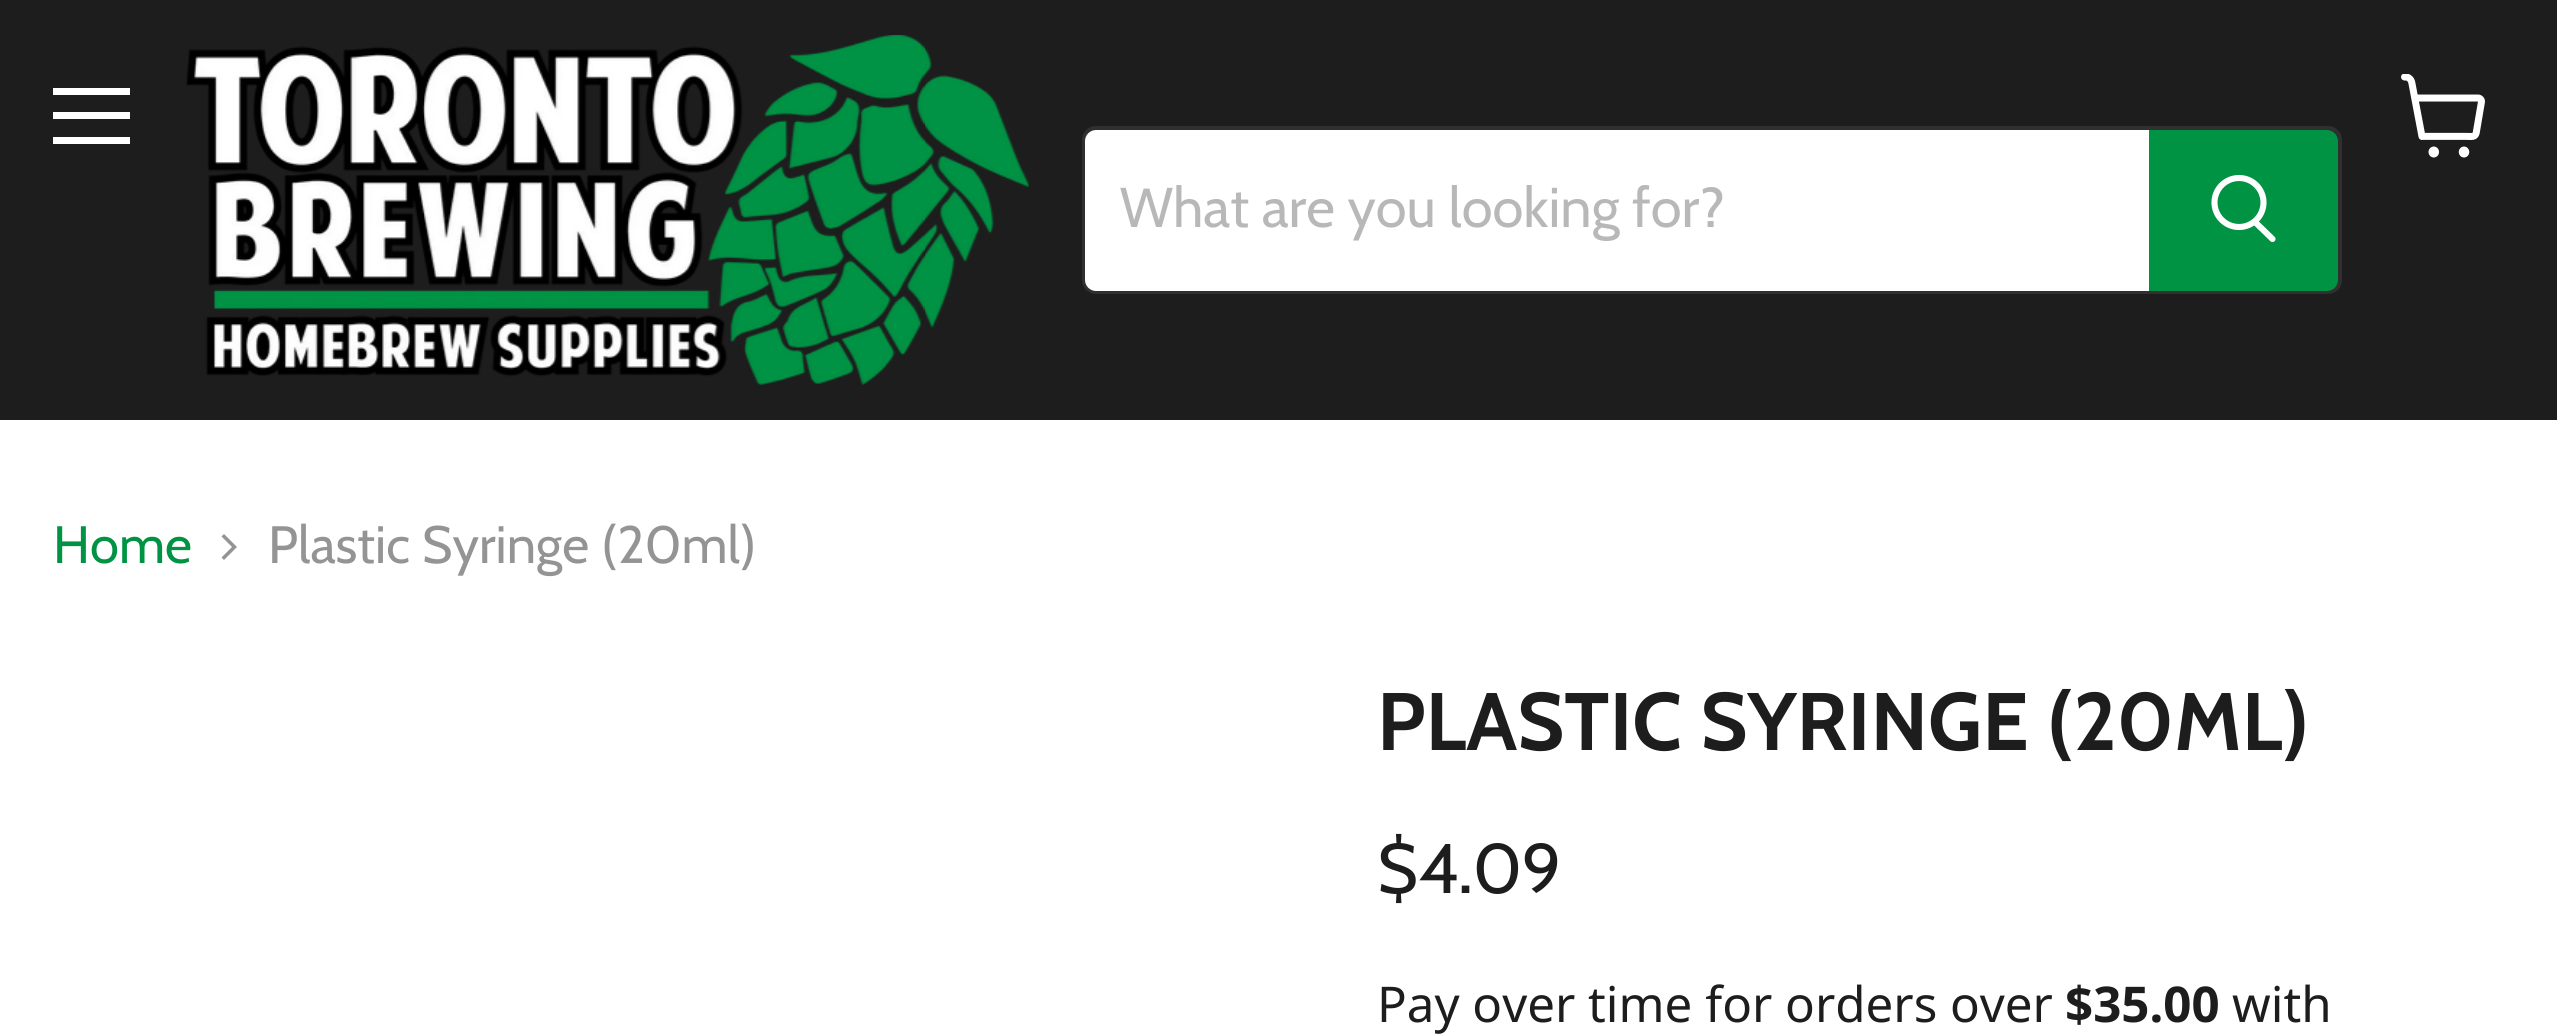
#include <cairo.h>
#include <math.h>
#include <stddef.h>

typedef struct { double x, y, w, h; unsigned color; } box_t;

static void ink(cairo_t *ctx, unsigned color) {
    cairo_set_source_rgb(ctx, (color >> 16) / 255.0, (color >> 8 & 255) / 255.0, (color & 255) / 255.0);
}

static void round_path(cairo_t *ctx, double x, double y, double w, double h, double r) {
    cairo_new_sub_path(ctx);
    cairo_arc(ctx, x + w - r, y + h - r, r, 0, M_PI / 2);
    cairo_arc(ctx, x + r, y + h - r, r, M_PI / 2, M_PI);
    cairo_arc(ctx, x + r, y + r, r, M_PI, 1.5 * M_PI);
    cairo_arc(ctx, x + w - r, y + r, r, 1.5 * M_PI, 2 * M_PI);
    cairo_close_path(ctx);
}

static void paste(cairo_t *ctx, const char *path, double x, double y, double w, double h) {
    cairo_surface_t *image = cairo_image_surface_create_from_png(path);
    cairo_save(ctx);
    cairo_set_source_surface(ctx, image, x, y);
    cairo_rectangle(ctx, x, y, w, h);
    cairo_fill(ctx);
    cairo_restore(ctx);
    cairo_surface_destroy(image);
}

int main(void) {
    cairo_surface_t *surface = cairo_image_surface_create(CAIRO_FORMAT_RGB24, 2557, 1035);
    cairo_t *ctx = cairo_create(surface);
    cairo_font_options_t *options = cairo_font_options_create();
    cairo_font_options_set_hint_metrics(options, CAIRO_HINT_METRICS_OFF);
    cairo_font_options_set_hint_style(options, CAIRO_HINT_STYLE_NONE);
    cairo_set_font_options(ctx, options);
    cairo_set_miter_limit(ctx, 4);
    ink(ctx, 0xFFFFFF);
    cairo_paint(ctx);
    {
        static const box_t items[] = {
            {0, 0, 2557, 420, 0x1D1D1D},
            {53, 88, 77, 7, 0xFFFFFF},
            {53, 112, 77, 7, 0xFFFFFF},
            {53, 137, 77, 7, 0xFFFFFF},
        };
        for (size_t i = 0; i < sizeof items / sizeof *items; i++) {
            ink(ctx, items[i].color);
            cairo_rectangle(ctx, items[i].x, items[i].y, items[i].w, items[i].h);
            cairo_fill(ctx);
        }
    }
    paste(ctx, "media/1.png", 2401, 74, 84, 84);
    paste(ctx, "media/2.png", 186, 35, 843, 350);
    round_path(ctx, 1084, 128, 1256, 164, 12);
    cairo_set_source_rgba(ctx, 0.502, 0.502, 0.502, 0.2);
    cairo_set_line_width(ctx, 4);
    cairo_stroke(ctx);
    ink(ctx, 0xFFFFFF);
    cairo_new_path(ctx);
    cairo_move_to(ctx, 1096, 130);
    cairo_line_to(ctx, 2149, 130);
    cairo_line_to(ctx, 2149, 291);
    cairo_line_to(ctx, 1096, 291);
    cairo_curve_to(ctx, 1090, 291, 1085, 286, 1085, 280);
    cairo_line_to(ctx, 1085, 141);
    cairo_curve_to(ctx, 1085, 135, 1090, 130, 1096, 130);
    cairo_close_path(ctx);
    cairo_fill(ctx);
    cairo_select_font_face(ctx, "Cabin", CAIRO_FONT_SLANT_NORMAL, CAIRO_FONT_WEIGHT_NORMAL);
    cairo_set_font_size(ctx, 56);
    ink(ctx, 0xB8B8B8);
    cairo_move_to(ctx, 1120, 227);
    cairo_show_text(ctx, "What are you looking for?");
    ink(ctx, 0x009344);
    cairo_new_path(ctx);
    cairo_move_to(ctx, 2151, 132);
    cairo_line_to(ctx, 2327, 132);
    cairo_curve_to(ctx, 2332, 132, 2336, 136, 2336, 141);
    cairo_line_to(ctx, 2336, 280);
    cairo_curve_to(ctx, 2336, 285, 2332, 289, 2327, 289);
    cairo_line_to(ctx, 2151, 289);
    cairo_close_path(ctx);
    cairo_fill_preserve(ctx);
    cairo_stroke(ctx);
    cairo_new_path(ctx);
    cairo_move_to(ctx, 2272.5, 239);
    cairo_line_to(ctx, 2255.5, 222.5);
    ink(ctx, 0xFFFFFF);
    cairo_set_line_width(ctx, 6.1);
    cairo_set_line_cap(ctx, CAIRO_LINE_CAP_ROUND);
    cairo_stroke(ctx);
    cairo_arc(ctx, 2239, 202.5, 24.5, 0, 2 * M_PI);
    cairo_set_line_cap(ctx, CAIRO_LINE_CAP_BUTT);
    cairo_stroke(ctx);
    cairo_set_font_size(ctx, 52.5);
    ink(ctx, 0x009344);
    cairo_move_to(ctx, 53, 563);
    cairo_show_text(ctx, "Home");
    ink(ctx, 0x949494);
    cairo_set_fill_rule(ctx, CAIRO_FILL_RULE_EVEN_ODD);
    cairo_new_path(ctx);
    cairo_move_to(ctx, 221.5, 557.5);
    cairo_line_to(ctx, 224, 560);
    cairo_line_to(ctx, 237, 547);
    cairo_line_to(ctx, 224, 534);
    cairo_line_to(ctx, 221.5, 536.5);
    cairo_line_to(ctx, 232, 547);
    cairo_close_path(ctx);
    cairo_fill(ctx);
    cairo_move_to(ctx, 268, 563);
    cairo_show_text(ctx, "Plastic Syringe (20ml)");
    cairo_select_font_face(ctx, "Cabin", CAIRO_FONT_SLANT_NORMAL, CAIRO_FONT_WEIGHT_BOLD);
    cairo_set_font_size(ctx, 81.4);
    ink(ctx, 0x1D1D1D);
    cairo_move_to(ctx, 1377, 750);
    cairo_show_text(ctx, "PLASTIC SYRINGE (20ML)");
    cairo_select_font_face(ctx, "Cabin", CAIRO_FONT_SLANT_NORMAL, CAIRO_FONT_WEIGHT_NORMAL);
    cairo_set_font_size(ctx, 70);
    cairo_move_to(ctx, 1377, 893);
    cairo_show_text(ctx, "$4.09");
    cairo_select_font_face(ctx, "Noto Sans", CAIRO_FONT_SLANT_NORMAL, CAIRO_FONT_WEIGHT_NORMAL);
    cairo_set_font_size(ctx, 49.25);
    cairo_move_to(ctx, 1377, 1022);
    cairo_show_text(ctx, "Pay over time for orders over");
    cairo_select_font_face(ctx, "Noto Sans", CAIRO_FONT_SLANT_NORMAL, CAIRO_FONT_WEIGHT_BOLD);
    cairo_move_to(ctx, 2065, 1022);
    cairo_show_text(ctx, "$35.00");
    cairo_select_font_face(ctx, "Noto Sans", CAIRO_FONT_SLANT_NORMAL, CAIRO_FONT_WEIGHT_NORMAL);
    cairo_move_to(ctx, 2232, 1022);
    cairo_show_text(ctx, "with");
    cairo_surface_write_to_png(surface, "image.png");
    cairo_font_options_destroy(options);
    cairo_destroy(ctx);
    cairo_surface_destroy(surface);
    return 0;
}
